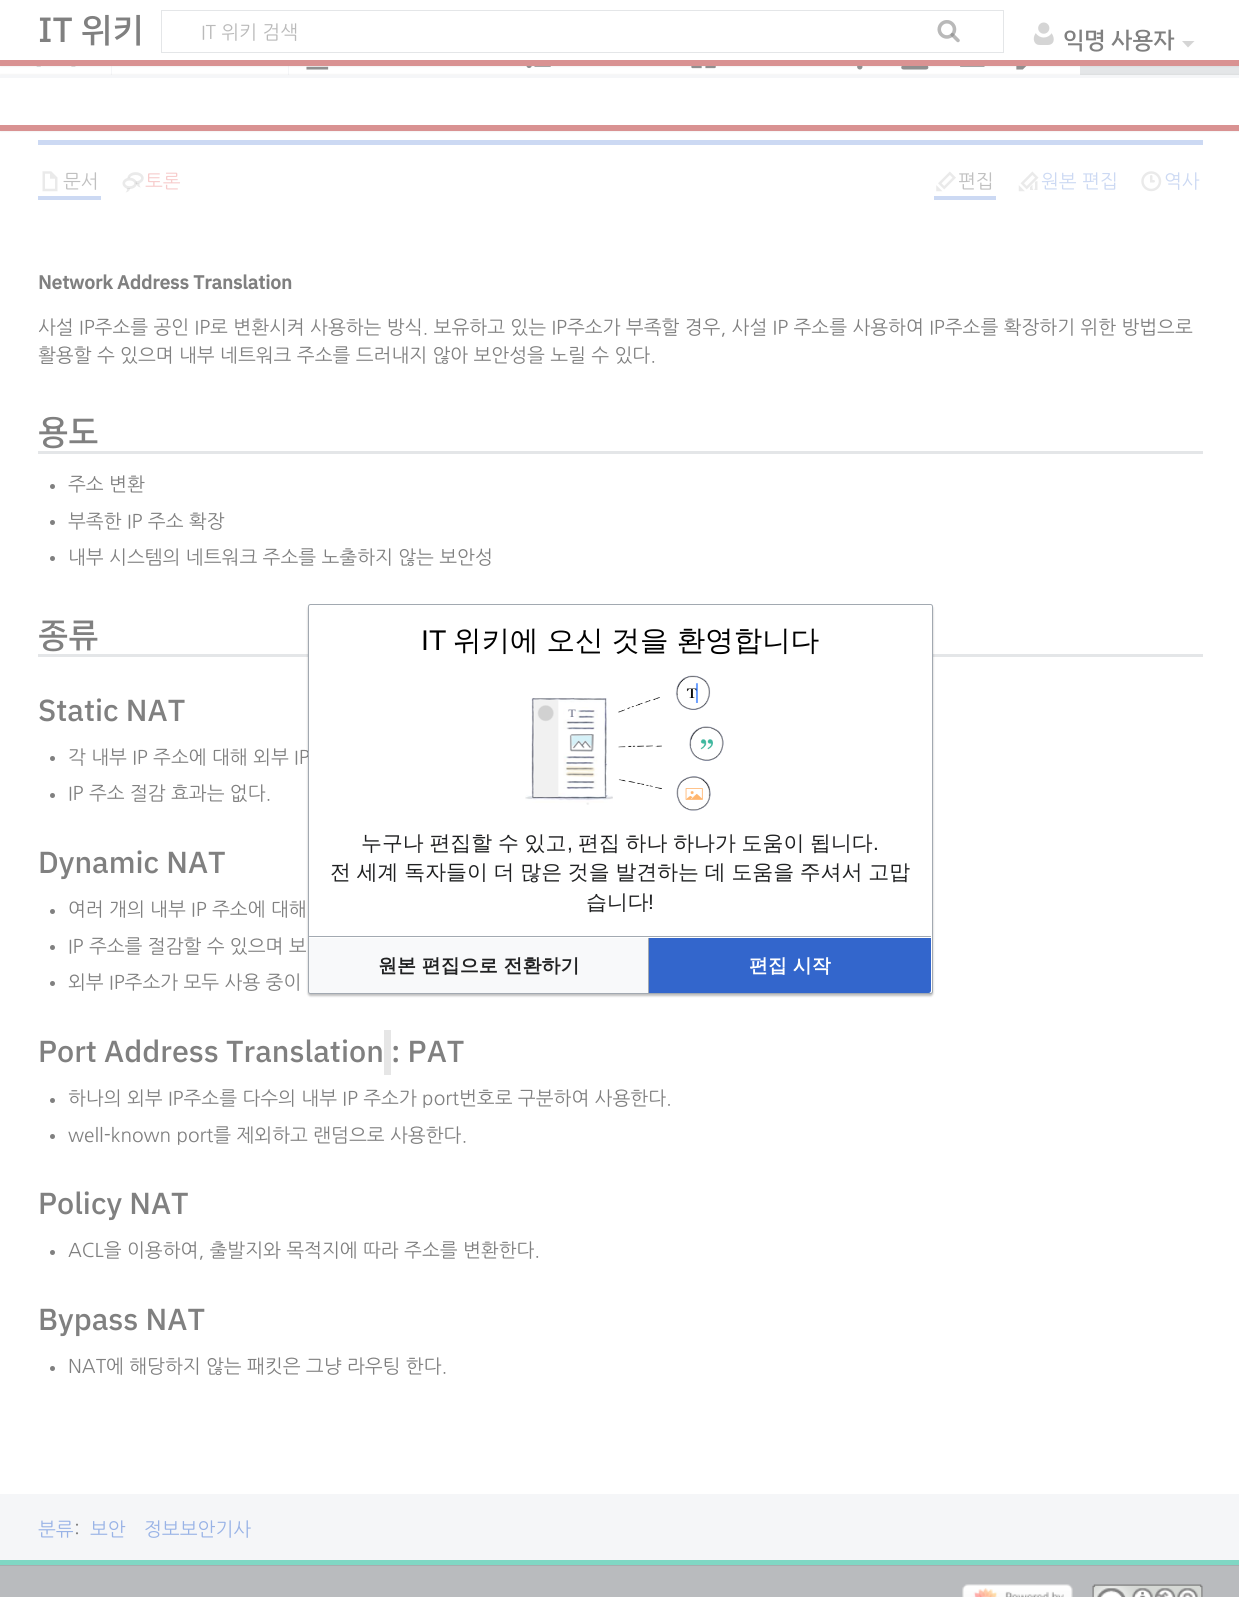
#include <cairo.h>
#include <math.h>
#include <stddef.h>

typedef struct { double x, y, w, h; unsigned color; } box_t;

static void ink(cairo_t *ctx, unsigned color) {
    cairo_set_source_rgb(ctx, (color >> 16) / 255.0, (color >> 8 & 255) / 255.0, (color & 255) / 255.0);
}

static void write_spaced(cairo_t *ctx, double x, double y, const char *s, double letter, double word) {
    cairo_move_to(ctx, x, y);
    while (*s) {
        char ch[5] = {0};
        int n = 0;
        do ch[n++] = *s++; while ((*s & 0xC0) == 0x80);
        cairo_show_text(ctx, ch);
        cairo_rel_move_to(ctx, letter + word * (*ch == ' '), 0);
    }
}

static void round_path(cairo_t *ctx, double x, double y, double w, double h, double r) {
    cairo_new_sub_path(ctx);
    cairo_arc(ctx, x + w - r, y + h - r, r, 0, M_PI / 2);
    cairo_arc(ctx, x + r, y + h - r, r, M_PI / 2, M_PI);
    cairo_arc(ctx, x + r, y + r, r, M_PI, 1.5 * M_PI);
    cairo_arc(ctx, x + w - r, y + r, r, 1.5 * M_PI, 2 * M_PI);
    cairo_close_path(ctx);
}

static void blur_box(cairo_t *ctx, double x, double y, double w, double h, double r, double blur, double alpha) {
    cairo_push_group_with_content(ctx, CAIRO_CONTENT_ALPHA);
    cairo_set_operator(ctx, CAIRO_OPERATOR_SOURCE);
    for (int i = 15; i >= -15 && fmin(w, h) + blur * i / 3 > 0; i -= 2) {
        double e = blur * i / 6;
        cairo_set_source_rgba(ctx, 0, 0, 0, alpha * erfc((i - 1) / 8.5) / 2);
        round_path(ctx, x - e, y - e, w + 2 * e, h + 2 * e, fmax(0, fmin(r + e + blur * .6, fmin(w, h) / 2 + e)));
        cairo_fill(ctx);
    }
    cairo_pattern_t *soft = cairo_pop_group(ctx);
    cairo_mask(ctx, soft);
    cairo_pattern_destroy(soft);
}

static void paste(cairo_t *ctx, const char *path, double x, double y, double w, double h) {
    cairo_surface_t *image = cairo_image_surface_create_from_png(path);
    cairo_save(ctx);
    cairo_set_source_surface(ctx, image, x, y);
    cairo_rectangle(ctx, x, y, w, h);
    cairo_fill(ctx);
    cairo_restore(ctx);
    cairo_surface_destroy(image);
}

int main(void) {
    cairo_surface_t *surface = cairo_image_surface_create(CAIRO_FORMAT_RGB24, 1239, 1597);
    cairo_t *ctx = cairo_create(surface);
    cairo_font_options_t *options = cairo_font_options_create();
    cairo_font_options_set_hint_metrics(options, CAIRO_HINT_METRICS_OFF);
    cairo_font_options_set_hint_style(options, CAIRO_HINT_STYLE_NONE);
    cairo_set_font_options(ctx, options);
    cairo_set_miter_limit(ctx, 4);
    ink(ctx, 0xB9BBBE);
    cairo_paint(ctx);
    ink(ctx, 0xFFFFFF);
    cairo_rectangle(ctx, 0, 66, 1080, 9);
    cairo_fill(ctx);
    paste(ctx, "media/4.png", 36, 66, 5, 1);
    paste(ctx, "media/5.png", 71, 66, 5, 1);
    ink(ctx, 0xF5F6F8);
    cairo_rectangle(ctx, 288, 66, 1, 9);
    cairo_fill(ctx);
    cairo_rectangle(ctx, 111, 66, 1, 9);
    cairo_fill(ctx);
    paste(ctx, "media/6.png", 306, 66, 23, 4);
    paste(ctx, "media/7.png", 526, 66, 25, 3);
    paste(ctx, "media/8.png", 691, 66, 25, 3);
    paste(ctx, "media/9.png", 857, 66, 6, 4);
    paste(ctx, "media/10.png", 901, 66, 28, 4);
    paste(ctx, "media/11.png", 960, 66, 25, 1);
    paste(ctx, "media/12.png", 1016, 66, 11, 4);
    ink(ctx, 0xE4E6E8);
    cairo_rectangle(ctx, 1080, 66, 159, 9);
    cairo_fill(ctx);
    ink(ctx, 0x808080);
    blur_box(ctx, 0, 60, 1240, 6, 0, 1, 0.2);
    ink(ctx, 0xFFFFFF);
    cairo_rectangle(ctx, 0, 0, 1239, 60);
    cairo_fill(ctx);
    cairo_select_font_face(ctx, "IBM Plex Sans KR Medium", CAIRO_FONT_SLANT_NORMAL, CAIRO_FONT_WEIGHT_NORMAL);
    cairo_set_font_size(ctx, 35);
    ink(ctx, 0x808080);
    cairo_move_to(ctx, 38, 42);
    cairo_show_text(ctx, "IT 위키");
    cairo_rectangle(ctx, 161.5, 10.5, 842, 42);
    ink(ctx, 0xE4E6E8);
    cairo_set_line_width(ctx, 1);
    cairo_stroke(ctx);
    paste(ctx, "media/1.png", 937, 20, 23, 23);
    cairo_select_font_face(ctx, "NanumGothic", CAIRO_FONT_SLANT_NORMAL, CAIRO_FONT_WEIGHT_NORMAL);
    cairo_set_font_size(ctx, 19);
    ink(ctx, 0xBABABA);
    cairo_move_to(ctx, 201, 39);
    cairo_show_text(ctx, "IT 위키 검색");
    paste(ctx, "media/2.png", 937, 20, 23, 23);
    paste(ctx, "media/3.png", 1033, 22, 21, 23);
    cairo_select_font_face(ctx, "IBM Plex Sans KR Medium", CAIRO_FONT_SLANT_NORMAL, CAIRO_FONT_WEIGHT_NORMAL);
    cairo_set_font_size(ctx, 23.75);
    ink(ctx, 0x808080);
    cairo_move_to(ctx, 1063, 48);
    cairo_show_text(ctx, "익명 사용자");
    ink(ctx, 0xD5D5D5);
    cairo_new_path(ctx);
    cairo_move_to(ctx, 1194.5, 41);
    cairo_line_to(ctx, 1188, 47.5);
    cairo_line_to(ctx, 1182, 41);
    cairo_close_path(ctx);
    cairo_fill(ctx);
    ink(ctx, 0xD99292);
    cairo_rectangle(ctx, 0, 60, 1239, 6);
    cairo_fill(ctx);
    ink(ctx, 0xFFFFFF);
    cairo_rectangle(ctx, 0, 131, 1239, 1363);
    cairo_fill(ctx);
    ink(ctx, 0x808080);
    blur_box(ctx, 0, 75, 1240, 56, 0, 1, 0.2);
    {
        static const box_t items[] = {
            {0, 78, 1239, 47, 0xFFFFFF},
            {0, 75, 1239, 3, 0xF5F6F8},
            {0, 125, 1239, 6, 0xD99292},
            {0, 1494, 1239, 66, 0xF5F6F8},
            {0, 1560, 1239, 5, 0x80D7C4},
            {38, 140, 1165, 5, 0xCCD9F3},
            {38, 196, 63, 4, 0xCCD9F3},
        };
        for (size_t i = 0; i < sizeof items / sizeof *items; i++) {
            ink(ctx, items[i].color);
            cairo_rectangle(ctx, items[i].x, items[i].y, items[i].w, items[i].h);
            cairo_fill(ctx);
        }
    }
    paste(ctx, "media/13.png", 42, 171, 16, 21);
    cairo_select_font_face(ctx, "NanumGothic", CAIRO_FONT_SLANT_NORMAL, CAIRO_FONT_WEIGHT_NORMAL);
    cairo_set_font_size(ctx, 19);
    ink(ctx, 0xC0C0C0);
    cairo_move_to(ctx, 63, 188);
    cairo_show_text(ctx, "문서");
    paste(ctx, "media/14.png", 122, 172, 22, 21);
    ink(ctx, 0xF7CCCC);
    cairo_move_to(ctx, 145, 188);
    cairo_show_text(ctx, "토론");
    ink(ctx, 0xCCD9F3);
    cairo_rectangle(ctx, 934, 196, 62, 4);
    cairo_fill(ctx);
    paste(ctx, "media/15.png", 936, 171, 20, 21);
    ink(ctx, 0xC0C0C0);
    cairo_move_to(ctx, 958, 188);
    cairo_show_text(ctx, "편집");
    paste(ctx, "media/16.png", 1018, 171, 21, 21);
    ink(ctx, 0xCCD9F3);
    cairo_move_to(ctx, 1041, 188);
    cairo_show_text(ctx, "원본 편집");
    paste(ctx, "media/17.png", 1141, 171, 21, 21);
    cairo_move_to(ctx, 1164, 188);
    cairo_show_text(ctx, "역사");
    cairo_select_font_face(ctx, "IBM Plex Sans KR", CAIRO_FONT_SLANT_NORMAL, CAIRO_FONT_WEIGHT_BOLD);
    ink(ctx, 0x808080);
    cairo_move_to(ctx, 38, 289);
    cairo_show_text(ctx, "Network Address Translation");
    cairo_select_font_face(ctx, "NanumGothic", CAIRO_FONT_SLANT_NORMAL, CAIRO_FONT_WEIGHT_NORMAL);
    cairo_move_to(ctx, 38, 334);
    cairo_show_text(ctx, "사설 IP주소를 공인 IP로 변환시켜 사용하는 방식. 보유하고 있는 IP주소가 부족할 경우, 사설 IP 주소를 사용하여 IP주소를 확장하기 위한 방법으로");
    cairo_move_to(ctx, 38, 362);
    cairo_show_text(ctx, "활용할 수 있으며 내부 네트워크 주소를 드러내지 않아 보안성을 노릴 수 있다.");
    cairo_select_font_face(ctx, "IBM Plex Sans KR Medium", CAIRO_FONT_SLANT_NORMAL, CAIRO_FONT_WEIGHT_NORMAL);
    cairo_set_font_size(ctx, 34);
    cairo_move_to(ctx, 38, 443);
    cairo_show_text(ctx, "용도");
    ink(ctx, 0xE4E6E8);
    cairo_rectangle(ctx, 38, 451, 1165, 3);
    cairo_fill(ctx);
    ink(ctx, 0x808080);
    cairo_arc(ctx, 52.5, 486.5, 2.5, 0, 2 * M_PI);
    cairo_fill(ctx);
    cairo_select_font_face(ctx, "NanumGothic", CAIRO_FONT_SLANT_NORMAL, CAIRO_FONT_WEIGHT_NORMAL);
    cairo_set_font_size(ctx, 19);
    cairo_move_to(ctx, 68, 491);
    cairo_show_text(ctx, "주소 변환");
    cairo_new_path(ctx);
    cairo_arc(ctx, 52.5, 522.5, 2.5, 0, 2 * M_PI);
    cairo_fill(ctx);
    cairo_move_to(ctx, 68, 528);
    cairo_show_text(ctx, "부족한 IP 주소 확장");
    cairo_new_path(ctx);
    cairo_arc(ctx, 52.5, 558.5, 2.5, 0, 2 * M_PI);
    cairo_fill(ctx);
    cairo_move_to(ctx, 68, 564);
    cairo_show_text(ctx, "내부 시스템의 네트워크 주소를 노출하지 않는 보안성");
    cairo_select_font_face(ctx, "IBM Plex Sans KR Medium", CAIRO_FONT_SLANT_NORMAL, CAIRO_FONT_WEIGHT_NORMAL);
    cairo_set_font_size(ctx, 34);
    cairo_move_to(ctx, 38, 646);
    cairo_show_text(ctx, "종류");
    ink(ctx, 0xE4E6E8);
    cairo_rectangle(ctx, 38, 654, 1165, 3);
    cairo_fill(ctx);
    cairo_set_font_size(ctx, 30.4);
    ink(ctx, 0x808080);
    cairo_move_to(ctx, 38, 721);
    cairo_show_text(ctx, "Static NAT");
    cairo_new_path(ctx);
    cairo_arc(ctx, 52.5, 758.5, 2.5, 0, 2 * M_PI);
    cairo_fill(ctx);
    cairo_select_font_face(ctx, "NanumGothic", CAIRO_FONT_SLANT_NORMAL, CAIRO_FONT_WEIGHT_NORMAL);
    cairo_set_font_size(ctx, 19);
    cairo_move_to(ctx, 68, 764);
    cairo_show_text(ctx, "각 내부 IP 주소에 대해 외부 IP");
    cairo_new_path(ctx);
    cairo_arc(ctx, 52.5, 795.5, 2.5, 0, 2 * M_PI);
    cairo_fill(ctx);
    cairo_move_to(ctx, 68, 800);
    cairo_show_text(ctx, "IP 주소 절감 효과는 없다.");
    cairo_select_font_face(ctx, "IBM Plex Sans KR Medium", CAIRO_FONT_SLANT_NORMAL, CAIRO_FONT_WEIGHT_NORMAL);
    cairo_set_font_size(ctx, 30.4);
    cairo_move_to(ctx, 38, 873);
    cairo_show_text(ctx, "Dynamic NAT");
    cairo_new_path(ctx);
    cairo_arc(ctx, 52.5, 911.5, 2.5, 0, 2 * M_PI);
    cairo_fill(ctx);
    cairo_select_font_face(ctx, "NanumGothic", CAIRO_FONT_SLANT_NORMAL, CAIRO_FONT_WEIGHT_NORMAL);
    cairo_set_font_size(ctx, 19);
    cairo_move_to(ctx, 68, 916);
    cairo_show_text(ctx, "여러 개의 내부 IP 주소에 대해");
    cairo_new_path(ctx);
    cairo_arc(ctx, 52.5, 947.5, 2.5, 0, 2 * M_PI);
    cairo_fill(ctx);
    cairo_move_to(ctx, 68, 953);
    cairo_show_text(ctx, "IP 주소를 절감할 수 있으며 보");
    cairo_new_path(ctx);
    cairo_arc(ctx, 52.5, 983.5, 2.5, 0, 2 * M_PI);
    cairo_fill(ctx);
    cairo_move_to(ctx, 68, 989);
    cairo_show_text(ctx, "외부 IP주소가 모두 사용 중이");
    cairo_select_font_face(ctx, "IBM Plex Sans KR Medium", CAIRO_FONT_SLANT_NORMAL, CAIRO_FONT_WEIGHT_NORMAL);
    cairo_set_font_size(ctx, 30.4);
    cairo_move_to(ctx, 38, 1062);
    cairo_show_text(ctx, "Port Address Translation : PAT");
    ink(ctx, 0xE6E6E6);
    cairo_rectangle(ctx, 384, 1030, 7, 45);
    cairo_fill(ctx);
    ink(ctx, 0x808080);
    cairo_arc(ctx, 52.5, 1100.5, 2.5, 0, 2 * M_PI);
    cairo_fill(ctx);
    cairo_select_font_face(ctx, "NanumGothic", CAIRO_FONT_SLANT_NORMAL, CAIRO_FONT_WEIGHT_NORMAL);
    cairo_set_font_size(ctx, 19);
    cairo_move_to(ctx, 68, 1105);
    cairo_show_text(ctx, "하나의 외부 IP주소를 다수의 내부 IP 주소가 port번호로 구분하여 사용한다.");
    cairo_new_path(ctx);
    cairo_arc(ctx, 52.5, 1136.5, 2.5, 0, 2 * M_PI);
    cairo_fill(ctx);
    cairo_move_to(ctx, 68, 1142);
    cairo_show_text(ctx, "well-known port를 제외하고 랜덤으로 사용한다.");
    cairo_select_font_face(ctx, "IBM Plex Sans KR Medium", CAIRO_FONT_SLANT_NORMAL, CAIRO_FONT_WEIGHT_NORMAL);
    cairo_set_font_size(ctx, 30.4);
    cairo_move_to(ctx, 38, 1214);
    cairo_show_text(ctx, "Policy NAT");
    cairo_new_path(ctx);
    cairo_arc(ctx, 52.5, 1252.5, 2.5, 0, 2 * M_PI);
    cairo_fill(ctx);
    cairo_select_font_face(ctx, "NanumGothic", CAIRO_FONT_SLANT_NORMAL, CAIRO_FONT_WEIGHT_NORMAL);
    cairo_set_font_size(ctx, 19);
    cairo_move_to(ctx, 68, 1257);
    cairo_show_text(ctx, "ACL을 이용하여, 출발지와 목적지에 따라 주소를 변환한다.");
    cairo_select_font_face(ctx, "IBM Plex Sans KR Medium", CAIRO_FONT_SLANT_NORMAL, CAIRO_FONT_WEIGHT_NORMAL);
    cairo_set_font_size(ctx, 30.4);
    cairo_move_to(ctx, 38, 1330);
    cairo_show_text(ctx, "Bypass NAT");
    cairo_new_path(ctx);
    cairo_arc(ctx, 52.5, 1368.5, 2.5, 0, 2 * M_PI);
    cairo_fill(ctx);
    cairo_select_font_face(ctx, "NanumGothic", CAIRO_FONT_SLANT_NORMAL, CAIRO_FONT_WEIGHT_NORMAL);
    cairo_set_font_size(ctx, 19);
    cairo_move_to(ctx, 68, 1373);
    cairo_show_text(ctx, "NAT에 해당하지 않는 패킷은 그냥 라우팅 한다.");
    ink(ctx, 0x99B3E6);
    cairo_move_to(ctx, 38, 1536);
    cairo_show_text(ctx, "분류");
    ink(ctx, 0x808080);
    cairo_move_to(ctx, 74, 1536);
    cairo_show_text(ctx, ":");
    ink(ctx, 0x99B3E6);
    cairo_move_to(ctx, 90, 1536);
    cairo_show_text(ctx, "보안");
    cairo_move_to(ctx, 144, 1536);
    cairo_show_text(ctx, "정보보안기사");
    ink(ctx, 0xAAACAE);
    cairo_rectangle(ctx, 0, 1565, 1239, 1);
    cairo_fill(ctx);
    paste(ctx, "media/18.png", 962, 1584, 111, 13);
    paste(ctx, "media/19.png", 1092, 1584, 111, 13);
    ink(ctx, 0x000000);
    blur_box(ctx, 308, 606, 625, 390, 2.5, 1, 0.25);
    ink(ctx, 0xFFFFFF);
    round_path(ctx, 308.5, 604.5, 624, 389, 2);
    cairo_fill_preserve(ctx);
    ink(ctx, 0xA2A9B1);
    cairo_stroke(ctx);
    cairo_select_font_face(ctx, "Liberation Sans", CAIRO_FONT_SLANT_NORMAL, CAIRO_FONT_WEIGHT_NORMAL);
    cairo_set_font_size(ctx, 28.5);
    ink(ctx, 0x000000);
    cairo_move_to(ctx, 421, 650);
    cairo_show_text(ctx, "IT");
    cairo_select_font_face(ctx, "WenQuanYi Zen Hei Medium", CAIRO_FONT_SLANT_NORMAL, CAIRO_FONT_WEIGHT_NORMAL);
    write_spaced(ctx, 453, 650, "위키에 오신 것을 환영합니다", 0, -0.5);
    paste(ctx, "media/20.png", 525, 675, 199, 136);
    cairo_set_font_size(ctx, 20.9);
    ink(ctx, 0x202122);
    write_spaced(ctx, 361, 850, "누구나 편집할 수 있고", 0, -0.5);
    cairo_select_font_face(ctx, "Liberation Sans", CAIRO_FONT_SLANT_NORMAL, CAIRO_FONT_WEIGHT_NORMAL);
    cairo_move_to(ctx, 567, 850);
    cairo_show_text(ctx, ",");
    cairo_select_font_face(ctx, "WenQuanYi Zen Hei Medium", CAIRO_FONT_SLANT_NORMAL, CAIRO_FONT_WEIGHT_NORMAL);
    write_spaced(ctx, 578, 850, "편집 하나 하나가 도움이 됩니다", 0, -0.5);
    cairo_select_font_face(ctx, "Liberation Sans", CAIRO_FONT_SLANT_NORMAL, CAIRO_FONT_WEIGHT_NORMAL);
    cairo_move_to(ctx, 873, 850);
    cairo_show_text(ctx, ".");
    cairo_select_font_face(ctx, "WenQuanYi Zen Hei Medium", CAIRO_FONT_SLANT_NORMAL, CAIRO_FONT_WEIGHT_NORMAL);
    write_spaced(ctx, 330, 879, "전 세계 독자들이 더 많은 것을 발견하는 데 도움을 주셔서 고맙", 0, -0.5);
    cairo_move_to(ctx, 586, 909);
    cairo_show_text(ctx, "습니다");
    cairo_select_font_face(ctx, "Liberation Sans", CAIRO_FONT_SLANT_NORMAL, CAIRO_FONT_WEIGHT_NORMAL);
    cairo_move_to(ctx, 648, 909);
    cairo_show_text(ctx, "!");
    cairo_save(ctx);
    cairo_rectangle(ctx, 309, 605, 622, 388);
    cairo_clip(ctx);
    cairo_rectangle(ctx, 308.5, 936.5, 624, 57);
    ink(ctx, 0xA2A9B1);
    cairo_stroke(ctx);
    cairo_restore(ctx);
    ink(ctx, 0xA2A9B1);
    cairo_rectangle(ctx, 648, 938, 1, 55);
    cairo_fill(ctx);
    ink(ctx, 0xF8F9FA);
    cairo_new_path(ctx);
    cairo_move_to(ctx, 309, 938);
    cairo_line_to(ctx, 648, 938);
    cairo_line_to(ctx, 648, 993);
    cairo_line_to(ctx, 311.5, 993);
    cairo_curve_to(ctx, 310, 993, 309, 992, 309, 990.5);
    cairo_close_path(ctx);
    cairo_fill(ctx);
    cairo_select_font_face(ctx, "WenQuanYi Zen Hei", CAIRO_FONT_SLANT_NORMAL, CAIRO_FONT_WEIGHT_BOLD);
    cairo_set_font_size(ctx, 19);
    ink(ctx, 0x202122);
    cairo_move_to(ctx, 378, 972);
    cairo_show_text(ctx, "원본 편집으로 전환하기");
    ink(ctx, 0x3366CC);
    cairo_new_path(ctx);
    cairo_move_to(ctx, 649, 938);
    cairo_line_to(ctx, 931, 938);
    cairo_line_to(ctx, 931, 990.5);
    cairo_curve_to(ctx, 931, 992, 930, 993, 928.5, 993);
    cairo_line_to(ctx, 649, 993);
    cairo_close_path(ctx);
    cairo_fill(ctx);
    ink(ctx, 0xFFFFFF);
    cairo_move_to(ctx, 749, 972);
    cairo_show_text(ctx, "편집 시작");
    cairo_surface_write_to_png(surface, "image.png");
    cairo_font_options_destroy(options);
    cairo_destroy(ctx);
    cairo_surface_destroy(surface);
    return 0;
}
